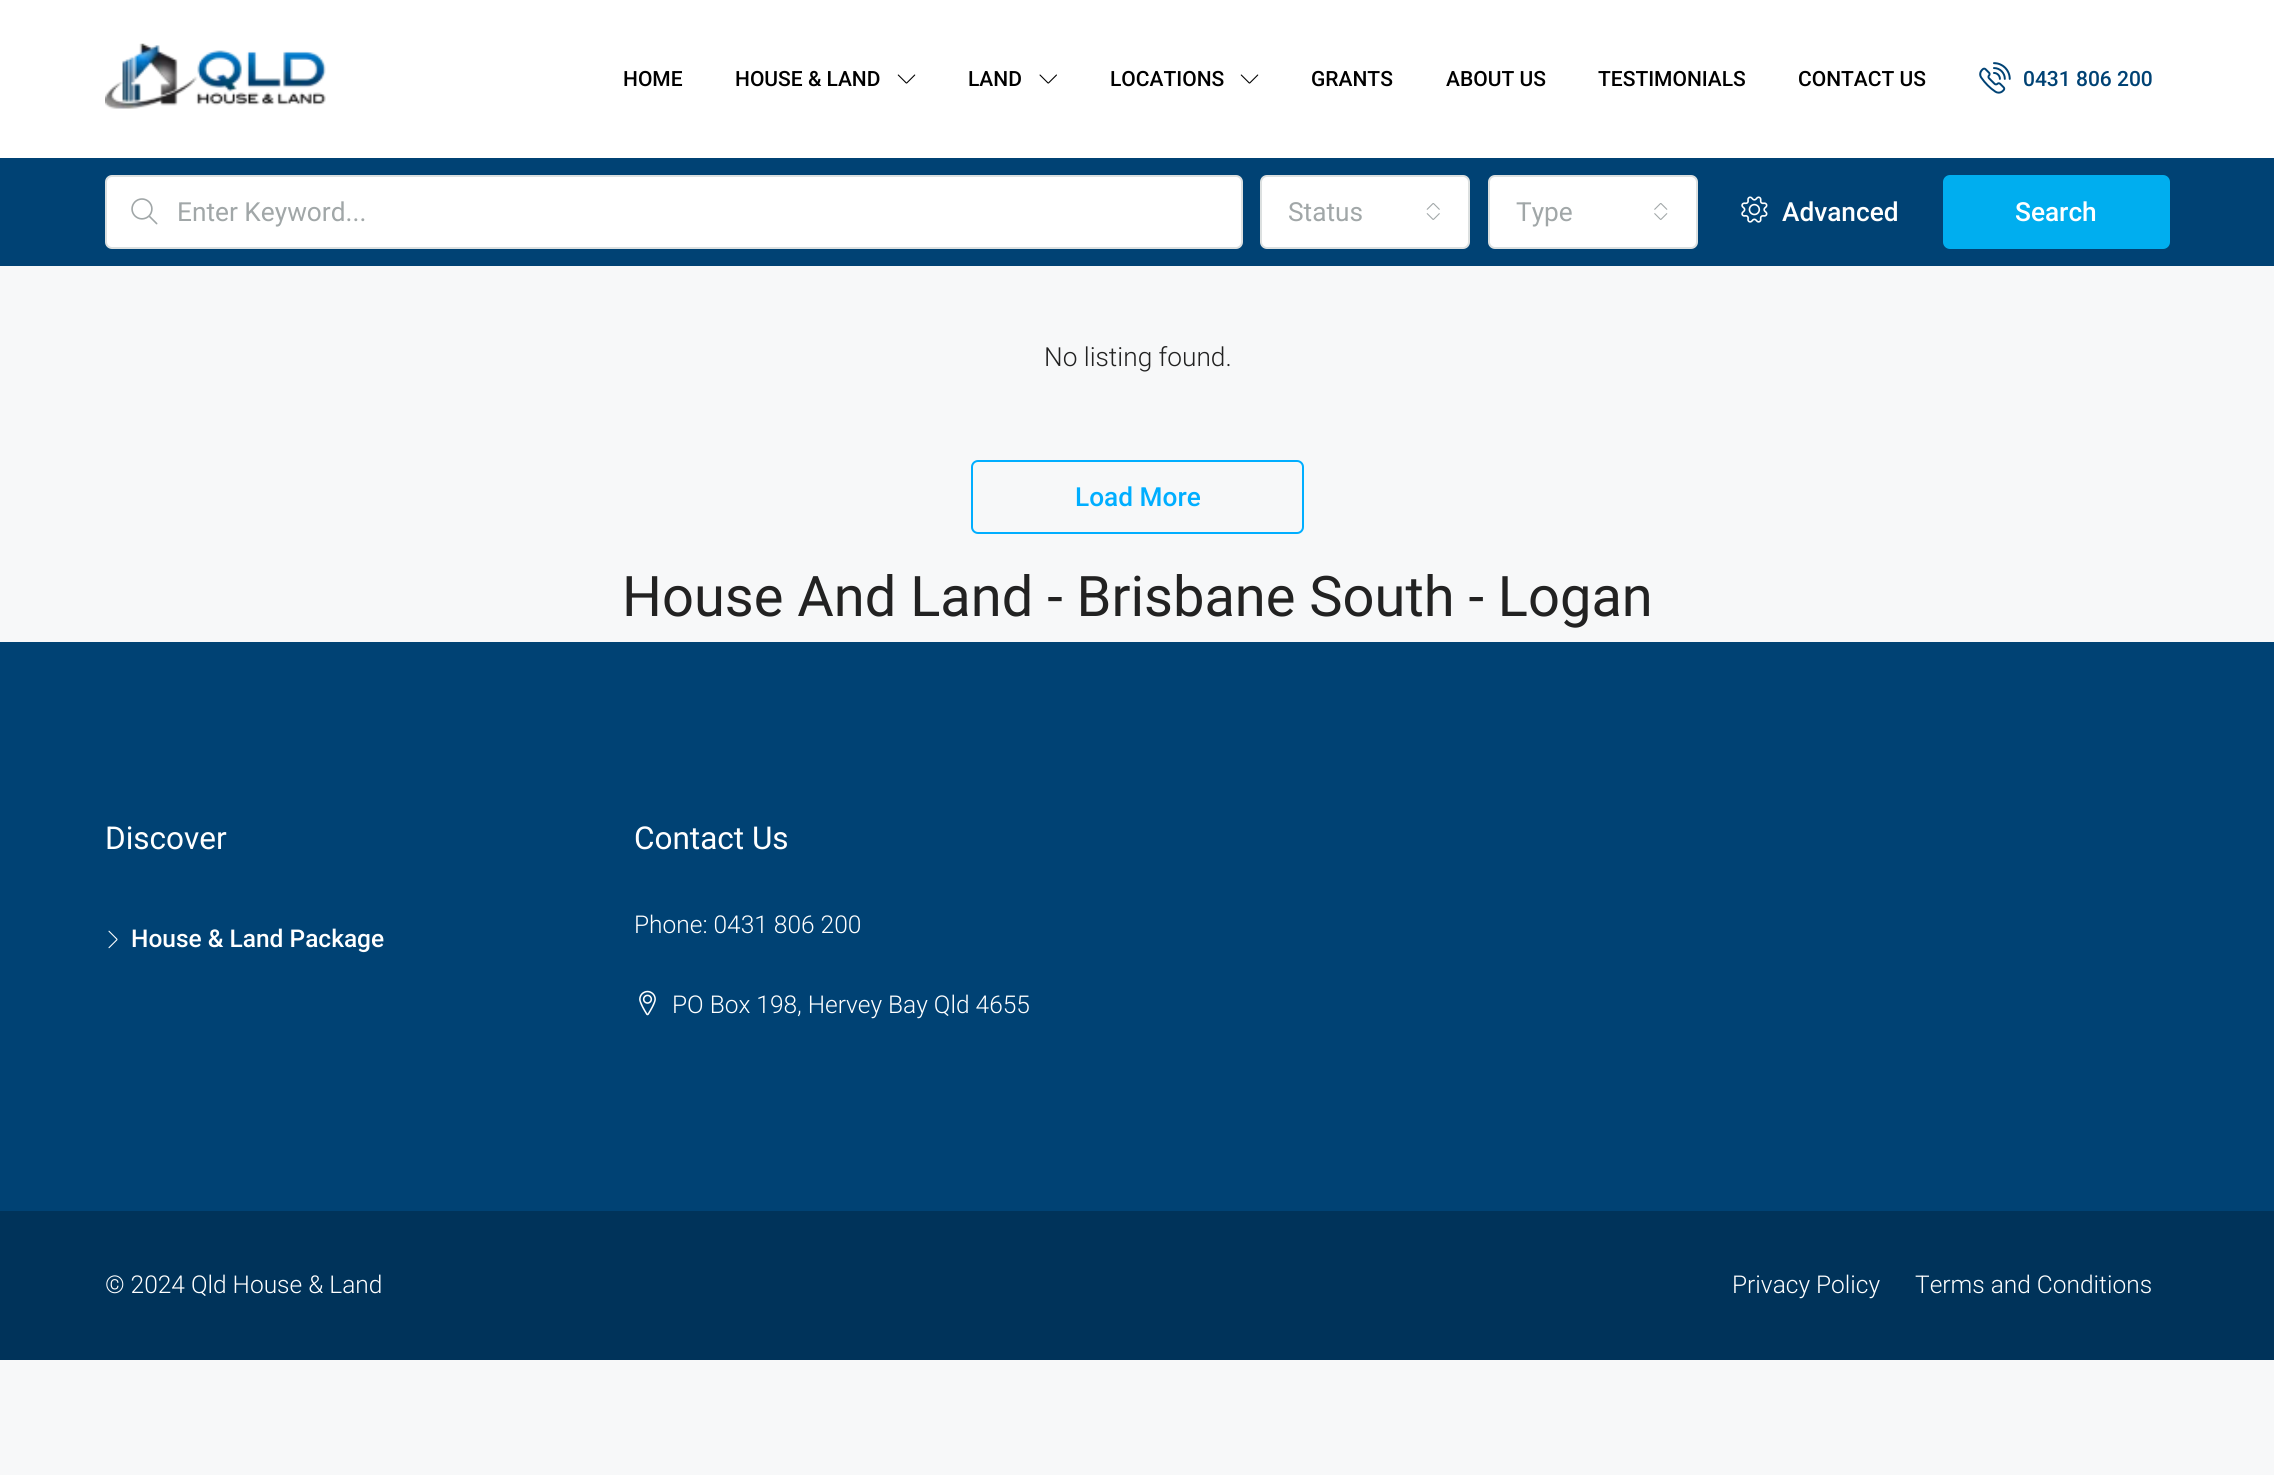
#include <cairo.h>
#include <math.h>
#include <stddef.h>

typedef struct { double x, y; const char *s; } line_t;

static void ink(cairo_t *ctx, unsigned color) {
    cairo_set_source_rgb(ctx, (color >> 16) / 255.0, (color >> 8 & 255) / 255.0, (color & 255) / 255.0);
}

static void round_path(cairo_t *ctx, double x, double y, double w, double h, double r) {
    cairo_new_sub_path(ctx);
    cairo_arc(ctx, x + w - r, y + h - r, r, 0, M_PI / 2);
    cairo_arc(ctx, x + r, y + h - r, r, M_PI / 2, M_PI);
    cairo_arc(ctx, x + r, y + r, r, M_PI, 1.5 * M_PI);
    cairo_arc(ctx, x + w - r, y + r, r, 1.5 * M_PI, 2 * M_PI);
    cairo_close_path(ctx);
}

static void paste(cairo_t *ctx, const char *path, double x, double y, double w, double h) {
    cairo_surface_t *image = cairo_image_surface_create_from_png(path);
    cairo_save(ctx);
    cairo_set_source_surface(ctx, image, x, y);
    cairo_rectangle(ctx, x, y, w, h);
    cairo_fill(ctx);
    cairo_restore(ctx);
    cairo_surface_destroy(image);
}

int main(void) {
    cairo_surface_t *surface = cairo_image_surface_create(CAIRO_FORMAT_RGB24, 2274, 1475);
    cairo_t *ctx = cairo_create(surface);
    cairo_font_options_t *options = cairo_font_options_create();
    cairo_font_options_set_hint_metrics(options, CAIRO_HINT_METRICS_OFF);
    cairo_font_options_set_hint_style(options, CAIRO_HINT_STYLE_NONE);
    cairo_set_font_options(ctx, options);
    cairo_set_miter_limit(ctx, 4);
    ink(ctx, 0xF7F8F9);
    cairo_paint(ctx);
    ink(ctx, 0xFFFFFF);
    cairo_rectangle(ctx, 0, 0, 2274, 158);
    cairo_fill(ctx);
    paste(ctx, "media/1.png", 105, 43, 221, 66);
    cairo_select_font_face(ctx, "Roboto Medium", CAIRO_FONT_SLANT_NORMAL, CAIRO_FONT_WEIGHT_NORMAL);
    cairo_set_font_size(ctx, 21);
    ink(ctx, 0x000000);
    cairo_move_to(ctx, 623, 86);
    cairo_show_text(ctx, "HOME");
    cairo_move_to(ctx, 735, 86);
    cairo_show_text(ctx, "HOUSE & LAND");
    paste(ctx, "media/2.png", 897, 74, 19, 10);
    cairo_move_to(ctx, 968, 86);
    cairo_show_text(ctx, "LAND");
    paste(ctx, "media/3.png", 1039, 74, 18, 10);
    cairo_move_to(ctx, 1110, 86);
    cairo_show_text(ctx, "LOCATIONS");
    paste(ctx, "media/2.png", 1240, 74, 19, 10);
    {
        static const line_t items[] = {
            {1311, 86, "GRANTS"},
            {1446, 86, "ABOUT US"},
            {1598, 86, "TESTIMONIALS"},
            {1798, 86, "CONTACT US"},
        };
        for (size_t i = 0; i < sizeof items / sizeof *items; i++) {
            cairo_move_to(ctx, items[i].x, items[i].y);
            cairo_show_text(ctx, items[i].s);
        }
    }
    paste(ctx, "media/4.png", 1979, 62, 32, 32);
    ink(ctx, 0x004274);
    cairo_move_to(ctx, 2023, 86);
    cairo_show_text(ctx, "0431 806 200");
    cairo_rectangle(ctx, 0, 158, 2274, 108);
    cairo_fill(ctx);
    ink(ctx, 0xFFFFFF);
    round_path(ctx, 106, 176, 1136, 72, 6);
    cairo_fill_preserve(ctx);
    ink(ctx, 0xDCE0E0);
    cairo_stroke(ctx);
    paste(ctx, "media/5.png", 131, 198, 27, 27);
    cairo_select_font_face(ctx, "Roboto", CAIRO_FONT_SLANT_NORMAL, CAIRO_FONT_WEIGHT_NORMAL);
    cairo_set_font_size(ctx, 26.25);
    ink(ctx, 0xA1A7A8);
    cairo_move_to(ctx, 177, 221);
    cairo_show_text(ctx, "Enter Keyword...");
    ink(ctx, 0xFFFFFF);
    round_path(ctx, 1261, 176, 208, 72, 6);
    cairo_fill_preserve(ctx);
    ink(ctx, 0xDCE0E0);
    cairo_stroke(ctx);
    ink(ctx, 0xA1A7A8);
    cairo_move_to(ctx, 1288, 221);
    cairo_show_text(ctx, "Status");
    paste(ctx, "media/6.png", 1426, 203, 14, 17);
    ink(ctx, 0xFFFFFF);
    round_path(ctx, 1489, 176, 208, 72, 6);
    cairo_fill_preserve(ctx);
    ink(ctx, 0xDCE0E0);
    cairo_stroke(ctx);
    ink(ctx, 0xA1A7A8);
    cairo_move_to(ctx, 1516, 221);
    cairo_show_text(ctx, "Type");
    paste(ctx, "media/7.png", 1654, 203, 14, 17);
    paste(ctx, "media/8.png", 1741, 196, 27, 27);
    cairo_select_font_face(ctx, "Roboto Medium", CAIRO_FONT_SLANT_NORMAL, CAIRO_FONT_WEIGHT_NORMAL);
    ink(ctx, 0xFFFFFF);
    cairo_move_to(ctx, 1782, 221);
    cairo_show_text(ctx, "Advanced");
    ink(ctx, 0x00AEEF);
    round_path(ctx, 1944, 176, 225, 72, 6);
    cairo_fill_preserve(ctx);
    cairo_stroke(ctx);
    ink(ctx, 0xFFFFFF);
    cairo_move_to(ctx, 2015, 221);
    cairo_show_text(ctx, "Search");
    cairo_select_font_face(ctx, "Roboto Light", CAIRO_FONT_SLANT_NORMAL, CAIRO_FONT_WEIGHT_NORMAL);
    ink(ctx, 0x222222);
    cairo_move_to(ctx, 1044, 366);
    cairo_show_text(ctx, "No listing found.");
    round_path(ctx, 972, 461, 331, 72, 6);
    ink(ctx, 0x00AEFF);
    cairo_stroke(ctx);
    cairo_select_font_face(ctx, "Roboto Medium", CAIRO_FONT_SLANT_NORMAL, CAIRO_FONT_WEIGHT_NORMAL);
    cairo_move_to(ctx, 1075, 506);
    cairo_show_text(ctx, "Load More");
    cairo_select_font_face(ctx, "Roboto", CAIRO_FONT_SLANT_NORMAL, CAIRO_FONT_WEIGHT_NORMAL);
    cairo_set_font_size(ctx, 56);
    ink(ctx, 0x222222);
    cairo_move_to(ctx, 622, 616);
    cairo_show_text(ctx, "House And Land - Brisbane South - Logan");
    ink(ctx, 0x004274);
    cairo_rectangle(ctx, 0, 642, 2274, 569);
    cairo_fill(ctx);
    cairo_set_font_size(ctx, 31.5);
    ink(ctx, 0xFFFFFF);
    cairo_move_to(ctx, 105, 849);
    cairo_show_text(ctx, "Discover");
    paste(ctx, "media/9.png", 108, 930, 10, 19);
    cairo_select_font_face(ctx, "Roboto Medium", CAIRO_FONT_SLANT_NORMAL, CAIRO_FONT_WEIGHT_NORMAL);
    cairo_set_font_size(ctx, 24.5);
    cairo_move_to(ctx, 131, 947);
    cairo_show_text(ctx, "House & Land Package");
    cairo_select_font_face(ctx, "Roboto", CAIRO_FONT_SLANT_NORMAL, CAIRO_FONT_WEIGHT_NORMAL);
    cairo_set_font_size(ctx, 31.5);
    cairo_move_to(ctx, 634, 849);
    cairo_show_text(ctx, "Contact Us");
    cairo_select_font_face(ctx, "Roboto Light", CAIRO_FONT_SLANT_NORMAL, CAIRO_FONT_WEIGHT_NORMAL);
    cairo_set_font_size(ctx, 24.5);
    cairo_move_to(ctx, 634, 933);
    cairo_show_text(ctx, "Phone: 0431 806 200");
    paste(ctx, "media/10.png", 639, 990, 17, 26);
    cairo_move_to(ctx, 672, 1013);
    cairo_show_text(ctx, "PO Box 198, Hervey Bay Qld 4655");
    ink(ctx, 0x00335A);
    cairo_rectangle(ctx, 0, 1211, 2274, 149);
    cairo_fill(ctx);
    ink(ctx, 0xFFFFFF);
    {
        static const line_t items[] = {
            {105, 1293, "© 2024 Qld House & Land"},
            {1732, 1293, "Privacy Policy"},
            {1915, 1293, "Terms and Conditions"},
        };
        for (size_t i = 0; i < sizeof items / sizeof *items; i++) {
            cairo_move_to(ctx, items[i].x, items[i].y);
            cairo_show_text(ctx, items[i].s);
        }
    }
    cairo_surface_write_to_png(surface, "image.png");
    cairo_font_options_destroy(options);
    cairo_destroy(ctx);
    cairo_surface_destroy(surface);
    return 0;
}
